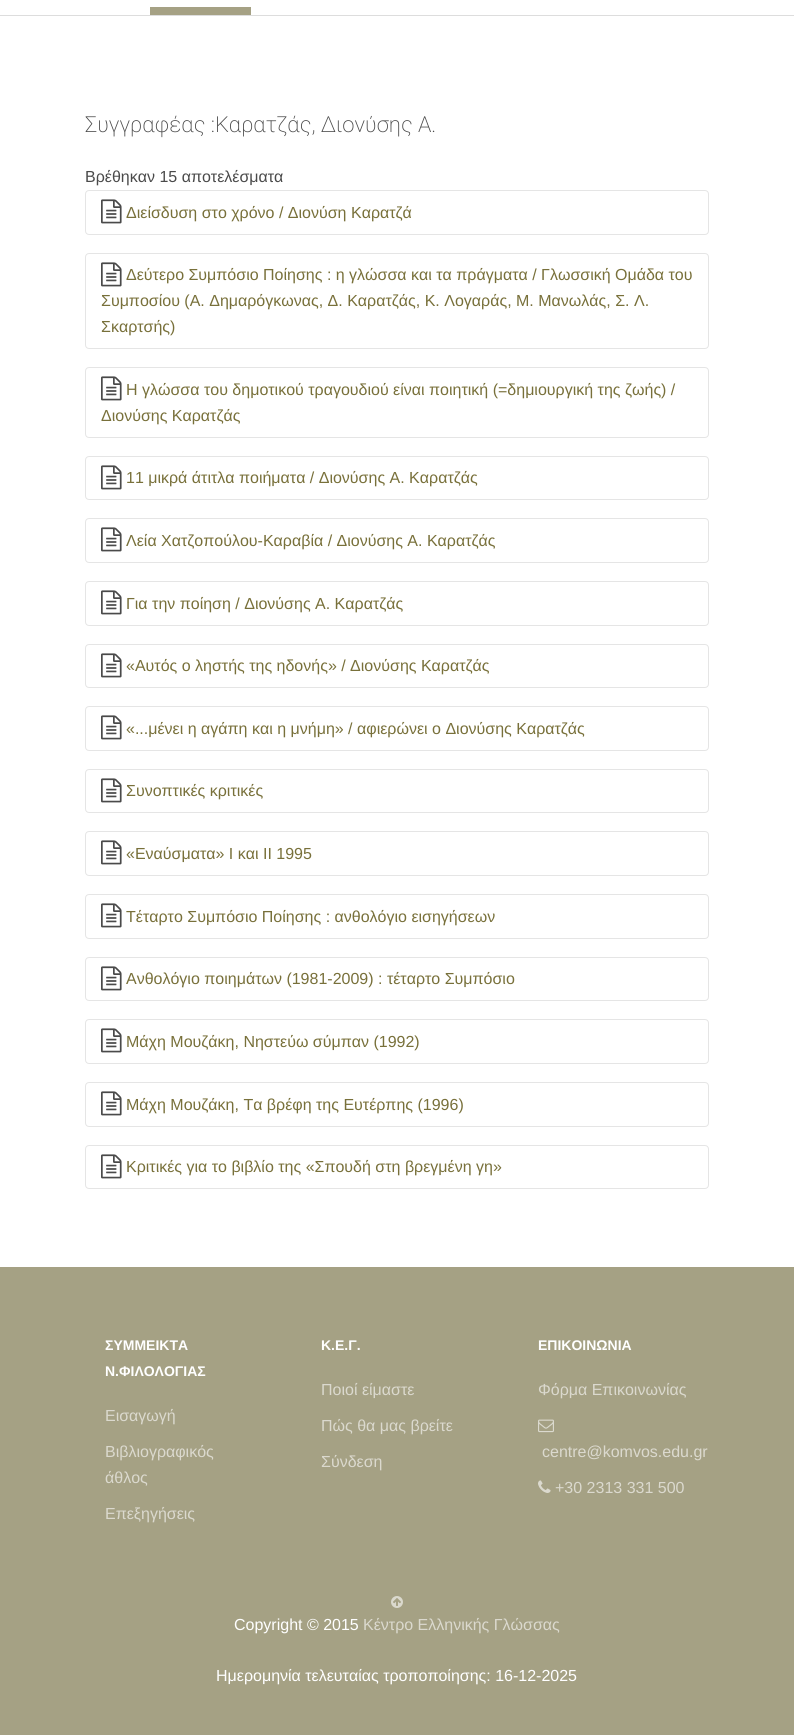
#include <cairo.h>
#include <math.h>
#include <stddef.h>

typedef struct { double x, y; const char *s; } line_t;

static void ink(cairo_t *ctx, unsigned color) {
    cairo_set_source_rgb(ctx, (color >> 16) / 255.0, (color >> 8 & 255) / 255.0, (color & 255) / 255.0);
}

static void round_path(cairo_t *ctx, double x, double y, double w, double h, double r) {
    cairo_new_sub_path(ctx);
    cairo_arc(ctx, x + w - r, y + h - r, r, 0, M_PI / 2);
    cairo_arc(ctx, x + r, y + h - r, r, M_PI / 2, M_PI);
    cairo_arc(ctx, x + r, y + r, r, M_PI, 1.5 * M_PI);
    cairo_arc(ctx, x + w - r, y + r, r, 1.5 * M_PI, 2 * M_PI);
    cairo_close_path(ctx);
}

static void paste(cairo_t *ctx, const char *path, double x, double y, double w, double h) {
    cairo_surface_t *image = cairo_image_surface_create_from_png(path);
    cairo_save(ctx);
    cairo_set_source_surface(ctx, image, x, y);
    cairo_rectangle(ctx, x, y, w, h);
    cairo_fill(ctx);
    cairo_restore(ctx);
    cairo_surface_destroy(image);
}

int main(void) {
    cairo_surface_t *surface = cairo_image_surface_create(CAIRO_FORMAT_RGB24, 794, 1735);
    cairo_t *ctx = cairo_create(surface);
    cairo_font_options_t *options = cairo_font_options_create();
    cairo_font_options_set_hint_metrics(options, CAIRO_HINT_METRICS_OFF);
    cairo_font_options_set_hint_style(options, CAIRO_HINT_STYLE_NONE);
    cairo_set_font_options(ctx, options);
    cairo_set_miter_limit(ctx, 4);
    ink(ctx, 0xFFFFFF);
    cairo_paint(ctx);
    ink(ctx, 0xA5A184);
    cairo_rectangle(ctx, 150, 7, 101, 8);
    cairo_fill(ctx);
    ink(ctx, 0xDDDDDD);
    cairo_rectangle(ctx, 0, 15, 794, 1);
    cairo_fill(ctx);
    cairo_select_font_face(ctx, "Roboto ExtraLight", CAIRO_FONT_SLANT_NORMAL, CAIRO_FONT_WEIGHT_NORMAL);
    cairo_set_font_size(ctx, 22);
    ink(ctx, 0x4A4A4A);
    cairo_move_to(ctx, 85, 132);
    cairo_show_text(ctx, "Συγγραφέας :Καρατζάς, Διονύσης Α.");
    cairo_select_font_face(ctx, "Liberation Sans", CAIRO_FONT_SLANT_NORMAL, CAIRO_FONT_WEIGHT_NORMAL);
    cairo_set_font_size(ctx, 16);
    cairo_move_to(ctx, 85, 182);
    cairo_show_text(ctx, "Βρέθηκαν 15 αποτελέσματα");
    round_path(ctx, 85.5, 190.5, 623, 44, 3.5);
    ink(ctx, 0xE5E5E5);
    cairo_set_line_width(ctx, 1);
    cairo_stroke(ctx);
    paste(ctx, "media/1.png", 101, 199, 21, 25);
    ink(ctx, 0x78703A);
    cairo_move_to(ctx, 126, 218);
    cairo_show_text(ctx, "Διείσδυση στο χρόνο / Διονύση Καρατζά");
    round_path(ctx, 85.5, 253.5, 623, 95, 3.5);
    ink(ctx, 0xE5E5E5);
    cairo_stroke(ctx);
    paste(ctx, "media/1.png", 101, 262, 21, 25);
    ink(ctx, 0x78703A);
    {
        static const line_t items[] = {
            {126, 280, "Δεύτερο Συμπόσιο Ποίησης : η γλώσσα και τα πράγματα / Γλωσσική Ομάδα του"},
            {101, 306, "Συμποσίου (Α. Δημαρόγκωνας, Δ. Καρατζάς, Κ. Λογαράς, Μ. Μανωλάς, Σ. Λ."},
            {101, 332, "Σκαρτσής)"},
        };
        for (size_t i = 0; i < sizeof items / sizeof *items; i++) {
            cairo_move_to(ctx, items[i].x, items[i].y);
            cairo_show_text(ctx, items[i].s);
        }
    }
    round_path(ctx, 85.5, 367.5, 623, 70, 3.5);
    ink(ctx, 0xE5E5E5);
    cairo_stroke(ctx);
    paste(ctx, "media/1.png", 101, 376, 21, 25);
    ink(ctx, 0x78703A);
    cairo_move_to(ctx, 126, 395);
    cairo_show_text(ctx, "Η γλώσσα του δημοτικού τραγουδιού είναι ποιητική (=δημιουργική της ζωής) /");
    cairo_move_to(ctx, 101, 421);
    cairo_show_text(ctx, "Διονύσης Καρατζάς");
    round_path(ctx, 85.5, 456.5, 623, 43, 3.5);
    ink(ctx, 0xE5E5E5);
    cairo_stroke(ctx);
    paste(ctx, "media/1.png", 101, 465, 21, 25);
    ink(ctx, 0x78703A);
    cairo_move_to(ctx, 126, 483);
    cairo_show_text(ctx, "11 μικρά άτιτλα ποιήματα / Διονύσης Α. Καρατζάς");
    round_path(ctx, 85.5, 518.5, 623, 44, 3.5);
    ink(ctx, 0xE5E5E5);
    cairo_stroke(ctx);
    paste(ctx, "media/1.png", 101, 527, 21, 25);
    ink(ctx, 0x78703A);
    cairo_move_to(ctx, 126, 546);
    cairo_show_text(ctx, "Λεία Χατζοπούλου-Καραβία / Διονύσης Α. Καρατζάς");
    round_path(ctx, 85.5, 581.5, 623, 44, 3.5);
    ink(ctx, 0xE5E5E5);
    cairo_stroke(ctx);
    paste(ctx, "media/1.png", 101, 590, 21, 25);
    ink(ctx, 0x78703A);
    cairo_move_to(ctx, 126, 609);
    cairo_show_text(ctx, "Για την ποίηση / Διονύσης Α. Καρατζάς");
    round_path(ctx, 85.5, 644.5, 623, 43, 3.5);
    ink(ctx, 0xE5E5E5);
    cairo_stroke(ctx);
    paste(ctx, "media/1.png", 101, 653, 21, 25);
    ink(ctx, 0x78703A);
    cairo_move_to(ctx, 126, 671);
    cairo_show_text(ctx, "«Αυτός ο ληστής της ηδονής» / Διονύσης Καρατζάς");
    round_path(ctx, 85.5, 706.5, 623, 44, 3.5);
    ink(ctx, 0xE5E5E5);
    cairo_stroke(ctx);
    paste(ctx, "media/1.png", 101, 715, 21, 25);
    ink(ctx, 0x78703A);
    cairo_move_to(ctx, 126, 734);
    cairo_show_text(ctx, "«...μένει η αγάπη και η μνήμη» / αφιερώνει ο Διονύσης Καρατζάς");
    round_path(ctx, 85.5, 769.5, 623, 43, 3.5);
    ink(ctx, 0xE5E5E5);
    cairo_stroke(ctx);
    paste(ctx, "media/1.png", 101, 778, 21, 25);
    ink(ctx, 0x78703A);
    cairo_move_to(ctx, 126, 796);
    cairo_show_text(ctx, "Συνοπτικές κριτικές");
    round_path(ctx, 85.5, 831.5, 623, 44, 3.5);
    ink(ctx, 0xE5E5E5);
    cairo_stroke(ctx);
    paste(ctx, "media/1.png", 101, 840, 21, 25);
    ink(ctx, 0x78703A);
    cairo_move_to(ctx, 126, 859);
    cairo_show_text(ctx, "«Εναύσματα» Ι και ΙΙ 1995");
    round_path(ctx, 85.5, 894.5, 623, 44, 3.5);
    ink(ctx, 0xE5E5E5);
    cairo_stroke(ctx);
    paste(ctx, "media/1.png", 101, 903, 21, 25);
    ink(ctx, 0x78703A);
    cairo_move_to(ctx, 126, 922);
    cairo_show_text(ctx, "Τέταρτο Συμπόσιο Ποίησης : ανθολόγιο εισηγήσεων");
    round_path(ctx, 85.5, 957.5, 623, 43, 3.5);
    ink(ctx, 0xE5E5E5);
    cairo_stroke(ctx);
    paste(ctx, "media/1.png", 101, 966, 21, 25);
    ink(ctx, 0x78703A);
    cairo_move_to(ctx, 126, 984);
    cairo_show_text(ctx, "Ανθολόγιο ποιημάτων (1981-2009) : τέταρτο Συμπόσιο");
    round_path(ctx, 85.5, 1019.5, 623, 44, 3.5);
    ink(ctx, 0xE5E5E5);
    cairo_stroke(ctx);
    paste(ctx, "media/1.png", 101, 1028, 21, 25);
    ink(ctx, 0x78703A);
    cairo_move_to(ctx, 126, 1047);
    cairo_show_text(ctx, "Μάχη Μουζάκη, Νηστεύω σύμπαν (1992)");
    round_path(ctx, 85.5, 1082.5, 623, 44, 3.5);
    ink(ctx, 0xE5E5E5);
    cairo_stroke(ctx);
    paste(ctx, "media/1.png", 101, 1091, 21, 25);
    ink(ctx, 0x78703A);
    cairo_move_to(ctx, 126, 1110);
    cairo_show_text(ctx, "Μάχη Μουζάκη, Τα βρέφη της Ευτέρπης (1996)");
    round_path(ctx, 85.5, 1145.5, 623, 43, 3.5);
    ink(ctx, 0xE5E5E5);
    cairo_stroke(ctx);
    paste(ctx, "media/1.png", 101, 1154, 21, 25);
    ink(ctx, 0x78703A);
    cairo_move_to(ctx, 126, 1172);
    cairo_show_text(ctx, "Κριτικές για το βιβλίο της «Σπουδή στη βρεγμένη γη»");
    ink(ctx, 0xA5A184);
    cairo_rectangle(ctx, 0, 1267, 794, 468);
    cairo_fill(ctx);
    cairo_select_font_face(ctx, "Liberation Sans", CAIRO_FONT_SLANT_NORMAL, CAIRO_FONT_WEIGHT_BOLD);
    cairo_set_font_size(ctx, 14);
    ink(ctx, 0xFFFFFF);
    cairo_move_to(ctx, 105, 1350);
    cairo_show_text(ctx, "ΣΥΜΜΕΙΚΤΑ");
    cairo_move_to(ctx, 105, 1376);
    cairo_show_text(ctx, "Ν.ΦΙΛΟΛΟΓΙΑΣ");
    cairo_select_font_face(ctx, "Liberation Sans", CAIRO_FONT_SLANT_NORMAL, CAIRO_FONT_WEIGHT_NORMAL);
    cairo_set_font_size(ctx, 16);
    ink(ctx, 0xDBD9CE);
    {
        static const line_t items[] = {
            {105, 1421, "Εισαγωγή"},
            {105, 1457, "Βιβλιογραφικός"},
            {105, 1483, "άθλος"},
            {105, 1519, "Επεξηγήσεις"},
        };
        for (size_t i = 0; i < sizeof items / sizeof *items; i++) {
            cairo_move_to(ctx, items[i].x, items[i].y);
            cairo_show_text(ctx, items[i].s);
        }
    }
    cairo_select_font_face(ctx, "Liberation Sans", CAIRO_FONT_SLANT_NORMAL, CAIRO_FONT_WEIGHT_BOLD);
    cairo_set_font_size(ctx, 14);
    ink(ctx, 0xFFFFFF);
    cairo_move_to(ctx, 321, 1350);
    cairo_show_text(ctx, "Κ.Ε.Γ.");
    cairo_select_font_face(ctx, "Liberation Sans", CAIRO_FONT_SLANT_NORMAL, CAIRO_FONT_WEIGHT_NORMAL);
    cairo_set_font_size(ctx, 16);
    ink(ctx, 0xDBD9CE);
    {
        static const line_t items[] = {
            {321, 1395, "Ποιοί είμαστε"},
            {321, 1431, "Πώς θα μας βρείτε"},
            {321, 1467, "Σύνδεση"},
        };
        for (size_t i = 0; i < sizeof items / sizeof *items; i++) {
            cairo_move_to(ctx, items[i].x, items[i].y);
            cairo_show_text(ctx, items[i].s);
        }
    }
    cairo_select_font_face(ctx, "Liberation Sans", CAIRO_FONT_SLANT_NORMAL, CAIRO_FONT_WEIGHT_BOLD);
    cairo_set_font_size(ctx, 14);
    ink(ctx, 0xFFFFFF);
    cairo_move_to(ctx, 538, 1350);
    cairo_show_text(ctx, "ΕΠΙΚΟΙΝΩΝΙΑ");
    cairo_select_font_face(ctx, "Liberation Sans", CAIRO_FONT_SLANT_NORMAL, CAIRO_FONT_WEIGHT_NORMAL);
    cairo_set_font_size(ctx, 16);
    ink(ctx, 0xDBD9CE);
    cairo_move_to(ctx, 538, 1395);
    cairo_show_text(ctx, "Φόρμα Επικοινωνίας");
    paste(ctx, "media/2.png", 538, 1419, 16, 14);
    cairo_move_to(ctx, 542, 1457);
    cairo_show_text(ctx, "centre@komvos.edu.gr");
    paste(ctx, "media/3.png", 538, 1480, 13, 13);
    cairo_move_to(ctx, 555, 1493);
    cairo_show_text(ctx, "+30 2313 331 500");
    paste(ctx, "media/4.png", 391, 1596, 12, 12);
    ink(ctx, 0xFFFFFF);
    cairo_move_to(ctx, 234, 1630);
    cairo_show_text(ctx, "Copyright © 2015");
    ink(ctx, 0xDBD9CE);
    cairo_move_to(ctx, 363, 1630);
    cairo_show_text(ctx, "Κέντρο Ελληνικής Γλώσσας");
    ink(ctx, 0xFFFFFF);
    cairo_move_to(ctx, 216, 1681);
    cairo_show_text(ctx, "Ημερομηνία τελευταίας τροποποίησης: 16-12-2025");
    cairo_surface_write_to_png(surface, "image.png");
    cairo_font_options_destroy(options);
    cairo_destroy(ctx);
    cairo_surface_destroy(surface);
    return 0;
}
